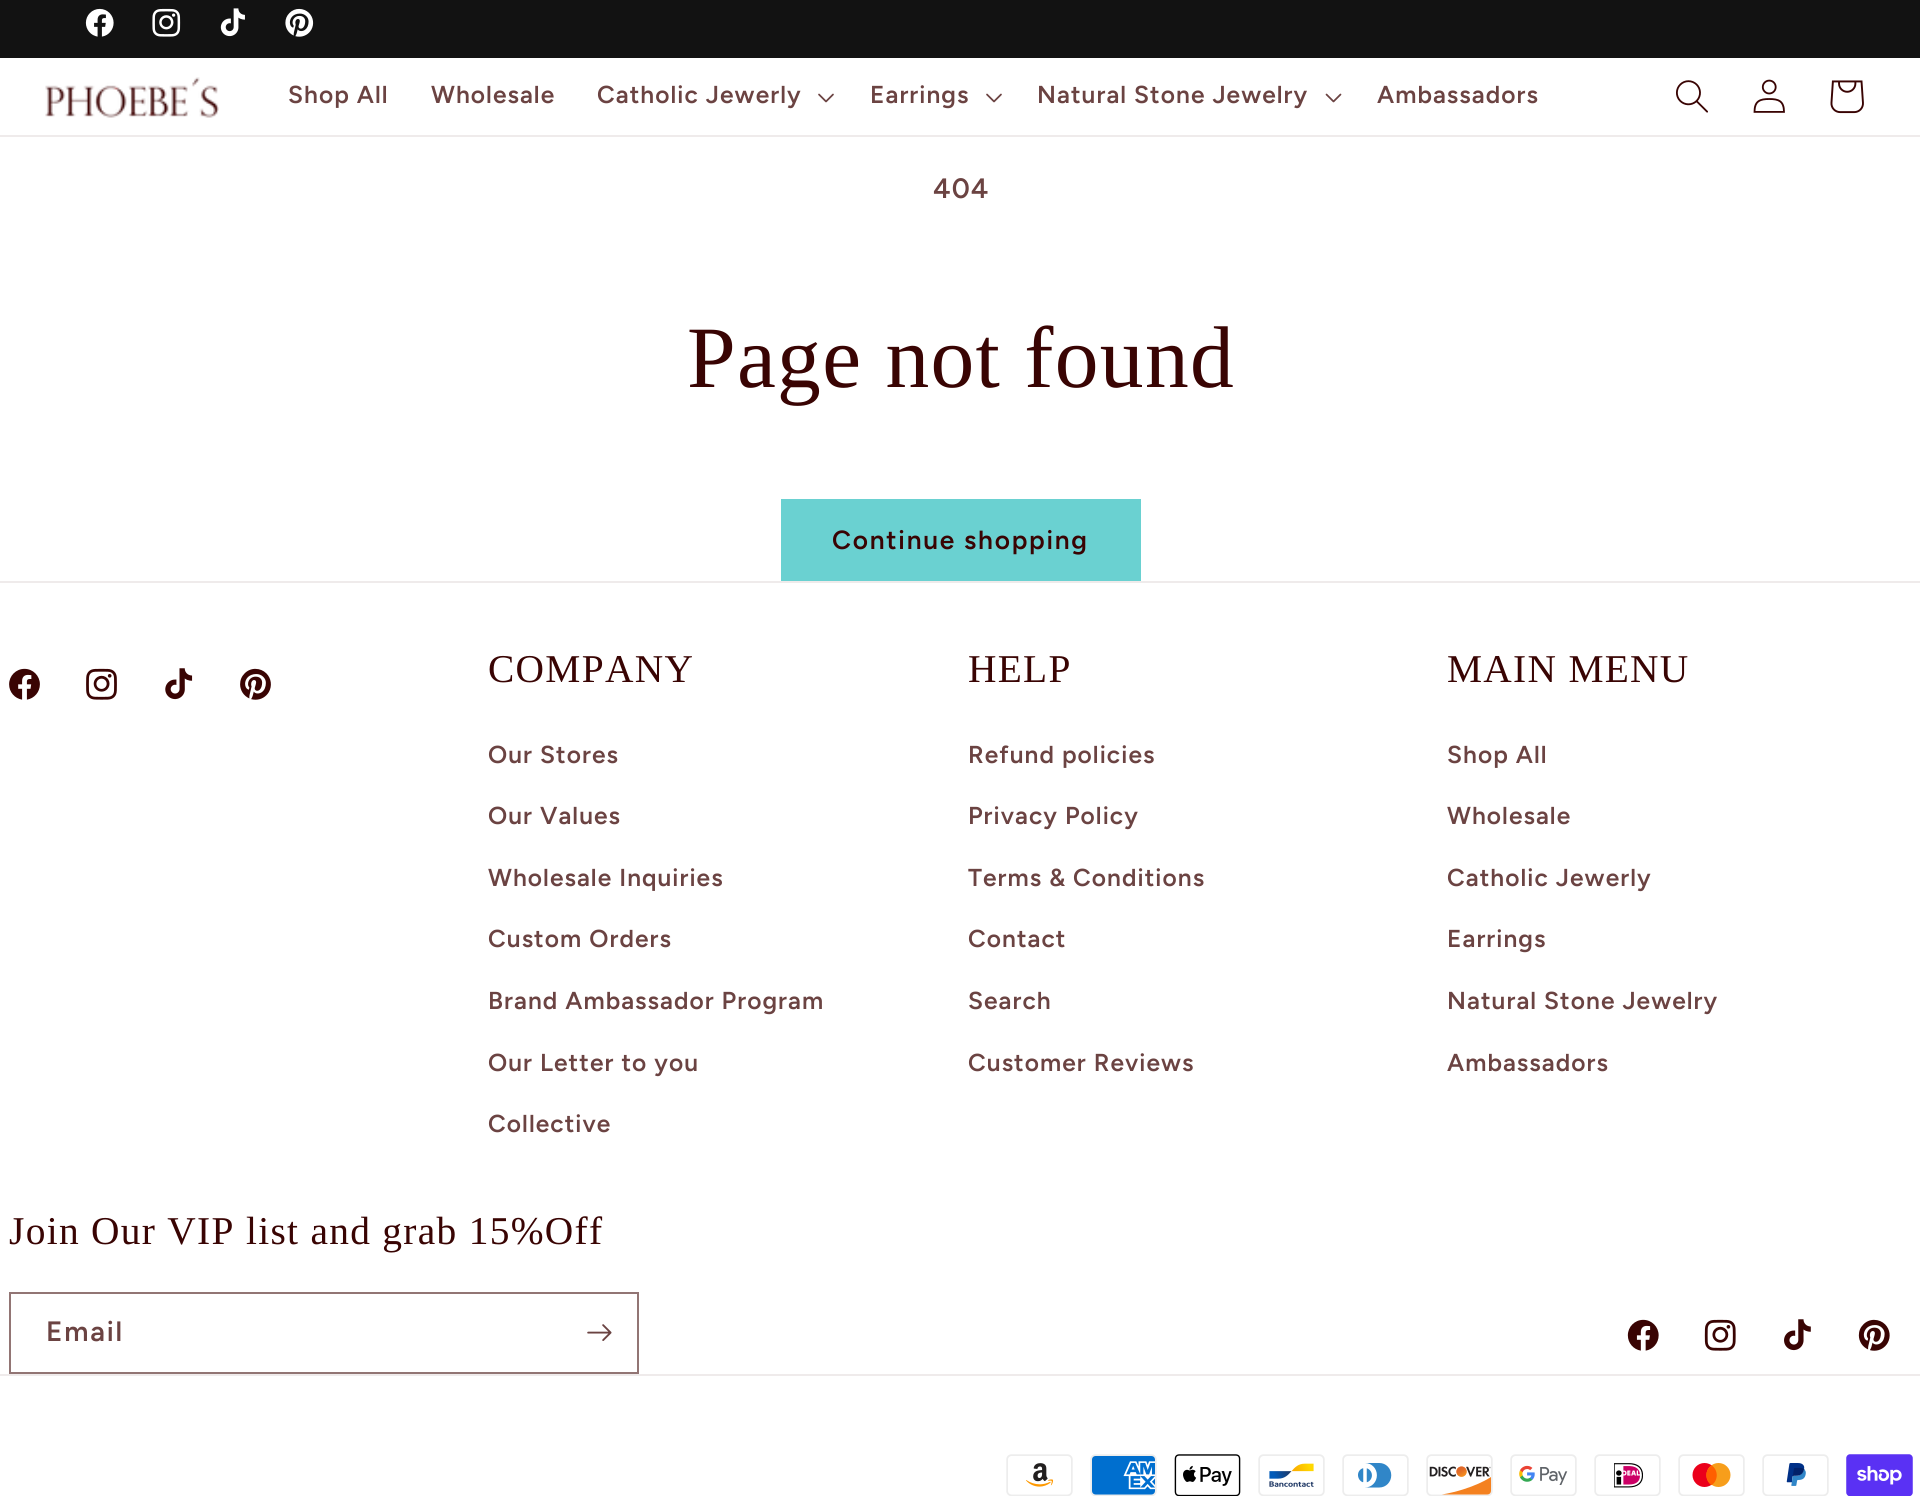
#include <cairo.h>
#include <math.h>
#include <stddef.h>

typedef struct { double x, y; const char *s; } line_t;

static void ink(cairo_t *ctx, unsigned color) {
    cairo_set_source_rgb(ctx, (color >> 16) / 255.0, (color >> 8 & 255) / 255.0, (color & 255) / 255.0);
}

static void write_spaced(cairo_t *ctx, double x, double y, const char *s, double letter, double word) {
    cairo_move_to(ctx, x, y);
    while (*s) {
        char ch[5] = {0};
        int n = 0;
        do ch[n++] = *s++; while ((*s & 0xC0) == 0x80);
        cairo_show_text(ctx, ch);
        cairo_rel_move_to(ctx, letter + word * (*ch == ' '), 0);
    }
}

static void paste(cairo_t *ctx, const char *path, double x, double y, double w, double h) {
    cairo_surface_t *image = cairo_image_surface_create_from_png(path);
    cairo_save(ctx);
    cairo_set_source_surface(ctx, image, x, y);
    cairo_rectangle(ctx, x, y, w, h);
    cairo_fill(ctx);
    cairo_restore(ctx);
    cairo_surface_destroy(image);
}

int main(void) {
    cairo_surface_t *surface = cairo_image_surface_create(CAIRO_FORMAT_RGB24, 1920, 1497);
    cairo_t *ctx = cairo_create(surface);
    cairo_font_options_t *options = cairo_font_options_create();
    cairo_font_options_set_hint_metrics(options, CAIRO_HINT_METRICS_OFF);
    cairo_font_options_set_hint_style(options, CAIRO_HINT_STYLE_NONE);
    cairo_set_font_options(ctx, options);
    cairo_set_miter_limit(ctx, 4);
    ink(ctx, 0xFFFFFF);
    cairo_paint(ctx);
    ink(ctx, 0x121212);
    cairo_rectangle(ctx, 0, 0, 1920, 58);
    cairo_fill(ctx);
    paste(ctx, "media/1.png", 85, 8, 29, 29);
    paste(ctx, "media/2.png", 152, 8, 29, 29);
    paste(ctx, "media/3.png", 220, 8, 25, 29);
    paste(ctx, "media/4.png", 285, 8, 29, 29);
    ink(ctx, 0xEFEBEB);
    cairo_rectangle(ctx, 0, 135, 1920, 2);
    cairo_fill(ctx);
    paste(ctx, "media/5.png", 45, 77, 174, 41);
    cairo_select_font_face(ctx, "Figtree SemiBold", CAIRO_FONT_SLANT_NORMAL, CAIRO_FONT_WEIGHT_NORMAL);
    cairo_set_font_size(ctx, 24.5);
    ink(ctx, 0x6B4342);
    {
        static const line_t items[] = {
            {288, 103, "Shop All"},
            {431, 103, "Wholesale"},
            {597, 103, "Catholic Jewerly"},
        };
        for (size_t i = 0; i < sizeof items / sizeof *items; i++) {
            write_spaced(ctx, items[i].x, items[i].y, items[i].s, 1.05, 0);
        }
    }
    paste(ctx, "media/6.png", 818, 93, 16, 10);
    write_spaced(ctx, 870, 103, "Earrings", 1.05, 0);
    paste(ctx, "media/6.png", 986, 93, 16, 10);
    write_spaced(ctx, 1037, 103, "Natural Stone Jewelry", 1.05, 0);
    paste(ctx, "media/7.png", 1325, 93, 17, 10);
    write_spaced(ctx, 1377, 103, "Ambassadors", 1.05, 0);
    paste(ctx, "media/8.png", 1676, 80, 32, 33);
    paste(ctx, "media/9.png", 1753, 79, 32, 34);
    paste(ctx, "media/10.png", 1830, 80, 34, 34);
    cairo_set_font_size(ctx, 28);
    write_spaced(ctx, 933, 198, "404", 1.05, 0);
    cairo_select_font_face(ctx, "Liberation Serif", CAIRO_FONT_SLANT_NORMAL, CAIRO_FONT_WEIGHT_NORMAL);
    cairo_set_font_size(ctx, 87.5);
    ink(ctx, 0x390403);
    write_spaced(ctx, 687, 387, "Page not found", 1.3, 0);
    ink(ctx, 0x6AD1D1);
    cairo_rectangle(ctx, 781, 499, 360, 82);
    cairo_fill(ctx);
    cairo_select_font_face(ctx, "Figtree SemiBold", CAIRO_FONT_SLANT_NORMAL, CAIRO_FONT_WEIGHT_NORMAL);
    cairo_set_font_size(ctx, 26.25);
    ink(ctx, 0x390403);
    write_spaced(ctx, 832, 549, "Continue shopping", 1.75, 0);
    ink(ctx, 0xEFEBEB);
    cairo_rectangle(ctx, 0, 581, 1920, 2);
    cairo_fill(ctx);
    paste(ctx, "media/11.png", 9, 668, 31, 32);
    paste(ctx, "media/12.png", 86, 668, 31, 32);
    paste(ctx, "media/13.png", 165, 668, 28, 32);
    paste(ctx, "media/14.png", 240, 668, 31, 32);
    cairo_select_font_face(ctx, "Liberation Serif", CAIRO_FONT_SLANT_NORMAL, CAIRO_FONT_WEIGHT_NORMAL);
    cairo_set_font_size(ctx, 39.4);
    ink(ctx, 0x390403);
    write_spaced(ctx, 488, 682, "COMPANY", 1.3, 0);
    cairo_select_font_face(ctx, "Figtree SemiBold", CAIRO_FONT_SLANT_NORMAL, CAIRO_FONT_WEIGHT_NORMAL);
    cairo_set_font_size(ctx, 24.5);
    ink(ctx, 0x6B4342);
    {
        static const line_t items[] = {
            {488, 763, "Our Stores"},
            {488, 824, "Our Values"},
            {488, 886, "Wholesale Inquiries"},
            {488, 947, "Custom Orders"},
            {488, 1009, "Brand Ambassador Program"},
            {488, 1071, "Our Letter to you"},
            {488, 1132, "Collective"},
        };
        for (size_t i = 0; i < sizeof items / sizeof *items; i++) {
            write_spaced(ctx, items[i].x, items[i].y, items[i].s, 1.05, 0);
        }
    }
    cairo_select_font_face(ctx, "Liberation Serif", CAIRO_FONT_SLANT_NORMAL, CAIRO_FONT_WEIGHT_NORMAL);
    cairo_set_font_size(ctx, 39.4);
    ink(ctx, 0x390403);
    write_spaced(ctx, 968, 682, "HELP", 1.3, 0);
    cairo_select_font_face(ctx, "Figtree SemiBold", CAIRO_FONT_SLANT_NORMAL, CAIRO_FONT_WEIGHT_NORMAL);
    cairo_set_font_size(ctx, 24.5);
    ink(ctx, 0x6B4342);
    {
        static const line_t items[] = {
            {968, 763, "Refund policies"},
            {968, 824, "Privacy Policy"},
            {968, 886, "Terms & Conditions"},
            {968, 947, "Contact"},
            {968, 1009, "Search"},
            {968, 1071, "Customer Reviews"},
        };
        for (size_t i = 0; i < sizeof items / sizeof *items; i++) {
            write_spaced(ctx, items[i].x, items[i].y, items[i].s, 1.05, 0);
        }
    }
    cairo_select_font_face(ctx, "Liberation Serif", CAIRO_FONT_SLANT_NORMAL, CAIRO_FONT_WEIGHT_NORMAL);
    cairo_set_font_size(ctx, 39.4);
    ink(ctx, 0x390403);
    write_spaced(ctx, 1447, 682, "MAIN MENU", 1.3, 0);
    cairo_select_font_face(ctx, "Figtree SemiBold", CAIRO_FONT_SLANT_NORMAL, CAIRO_FONT_WEIGHT_NORMAL);
    cairo_set_font_size(ctx, 24.5);
    ink(ctx, 0x6B4342);
    {
        static const line_t items[] = {
            {1447, 763, "Shop All"},
            {1447, 824, "Wholesale"},
            {1447, 886, "Catholic Jewerly"},
            {1447, 947, "Earrings"},
            {1447, 1009, "Natural Stone Jewelry"},
            {1447, 1071, "Ambassadors"},
        };
        for (size_t i = 0; i < sizeof items / sizeof *items; i++) {
            write_spaced(ctx, items[i].x, items[i].y, items[i].s, 1.05, 0);
        }
    }
    cairo_select_font_face(ctx, "Liberation Serif", CAIRO_FONT_SLANT_NORMAL, CAIRO_FONT_WEIGHT_NORMAL);
    cairo_set_font_size(ctx, 39.4);
    ink(ctx, 0x390403);
    write_spaced(ctx, 9, 1244, "Join Our VIP list and grab 15%Off", 1.3, 0);
    cairo_rectangle(ctx, 10, 1293, 628, 80);
    ink(ctx, 0x927574);
    cairo_stroke(ctx);
    cairo_select_font_face(ctx, "Figtree SemiBold", CAIRO_FONT_SLANT_NORMAL, CAIRO_FONT_WEIGHT_NORMAL);
    cairo_set_font_size(ctx, 28);
    ink(ctx, 0x6B4342);
    write_spaced(ctx, 46, 1341, "Email", 1.75, 0);
    paste(ctx, "media/15.png", 587, 1324, 25, 17);
    paste(ctx, "media/16.png", 1627, 1319, 32, 32);
    paste(ctx, "media/17.png", 1704, 1319, 32, 32);
    paste(ctx, "media/18.png", 1784, 1319, 27, 32);
    paste(ctx, "media/19.png", 1858, 1319, 32, 32);
    ink(ctx, 0xEFEBEB);
    cairo_rectangle(ctx, 0, 1374, 1920, 2);
    cairo_fill(ctx);
    paste(ctx, "media/20.png", 1006, 1454, 67, 42);
    paste(ctx, "media/21.png", 1090, 1454, 67, 42);
    paste(ctx, "media/22.png", 1174, 1454, 67, 42);
    paste(ctx, "media/23.png", 1258, 1454, 67, 42);
    paste(ctx, "media/24.png", 1342, 1454, 67, 42);
    paste(ctx, "media/25.png", 1426, 1454, 67, 42);
    paste(ctx, "media/26.png", 1510, 1454, 67, 42);
    paste(ctx, "media/27.png", 1594, 1454, 67, 42);
    paste(ctx, "media/28.png", 1678, 1454, 67, 42);
    paste(ctx, "media/29.png", 1762, 1454, 67, 42);
    paste(ctx, "media/30.png", 1846, 1454, 67, 42);
    cairo_surface_write_to_png(surface, "image.png");
    cairo_font_options_destroy(options);
    cairo_destroy(ctx);
    cairo_surface_destroy(surface);
    return 0;
}
